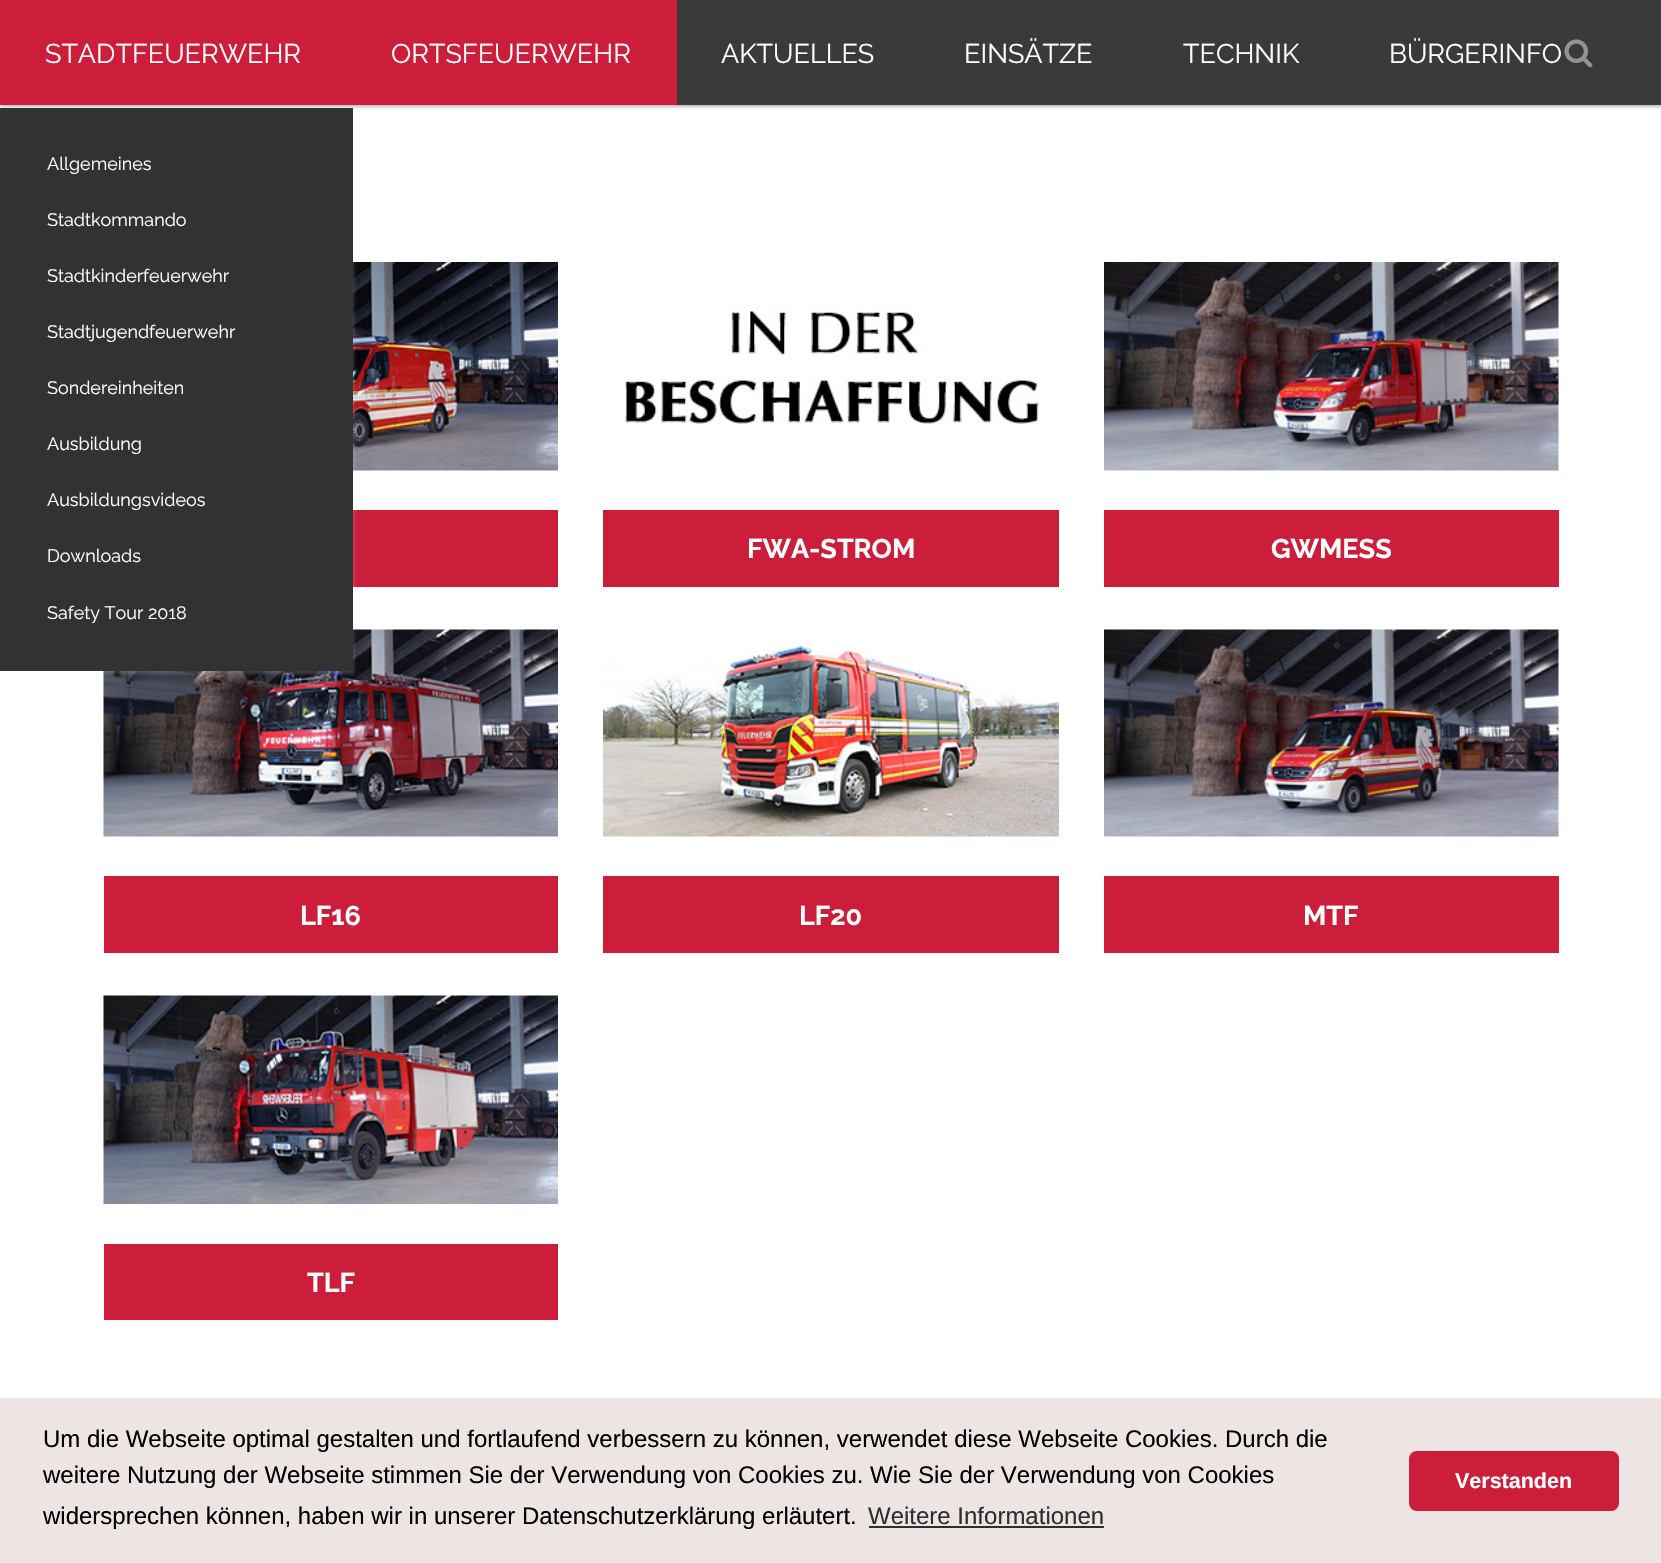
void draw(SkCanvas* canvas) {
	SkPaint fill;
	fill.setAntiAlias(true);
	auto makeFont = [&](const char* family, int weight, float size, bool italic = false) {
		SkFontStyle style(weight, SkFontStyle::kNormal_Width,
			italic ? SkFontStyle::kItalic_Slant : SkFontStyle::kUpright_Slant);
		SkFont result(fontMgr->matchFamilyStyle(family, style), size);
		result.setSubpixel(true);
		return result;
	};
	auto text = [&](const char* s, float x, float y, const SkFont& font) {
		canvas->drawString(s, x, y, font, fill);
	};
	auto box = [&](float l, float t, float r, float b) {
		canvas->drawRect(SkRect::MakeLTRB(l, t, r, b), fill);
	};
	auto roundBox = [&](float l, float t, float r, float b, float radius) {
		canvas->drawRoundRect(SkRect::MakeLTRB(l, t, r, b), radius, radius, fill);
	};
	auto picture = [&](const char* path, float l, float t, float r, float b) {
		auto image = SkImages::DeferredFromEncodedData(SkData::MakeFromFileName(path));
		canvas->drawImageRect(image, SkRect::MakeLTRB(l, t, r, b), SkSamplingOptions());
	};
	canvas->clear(0xFFFFFFFF);
	fill.setColor(0xFFBBBBBB);
	fill.setMaskFilter(SkMaskFilter::MakeBlur(kNormal_SkBlurStyle, 1.5f));
	canvas->drawRect(SkRect::MakeLTRB(0, 2, 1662, 107), fill);
	fill.setMaskFilter(nullptr);
	fill.setColor(0xFF3A3A3A);
	box(677, 0, 1661, 105);
	fill.setColor(0xFFCC1E3A);
	box(0, 0, 677, 105);
	picture("image1.png", 353, 262, 558, 471);
	box(353, 510, 558, 587);
	picture("image4.png", 103, 629, 558, 837);
	fill.setColor(0x2EFFFFFF);
	fill.setMaskFilter(SkMaskFilter::MakeBlur(kNormal_SkBlurStyle, 1.5f));
	canvas->drawRect(SkRect::MakeLTRB(-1, 108, 354, 674), fill);
	fill.setMaskFilter(nullptr);
	fill.setColor(0xFF323232);
	box(0, 108, 353, 671);
	picture("image0.png", 1564, 39, 1593, 68);
	picture("image2.png", 625, 304, 1039, 426);
	fill.setColor(0xFFCC1E3A);
	box(603, 510, 1059, 587);
	picture("image3.png", 1104, 262, 1559, 471);
	box(1104, 510, 1559, 587);
	box(104, 876, 558, 953);
	picture("image5.png", 603, 640, 1059, 837);
	box(603, 876, 1059, 953);
	picture("image6.png", 1104, 629, 1559, 837);
	box(1104, 876, 1559, 953);
	picture("image7.png", 103, 995, 558, 1204);
	box(104, 1244, 558, 1320);
	fill.setColor(0xFFEDE4E4);
	box(0, 1398, 1661, 1563);
	fill.setColor(0xFF2F2E2E);
	box(869, 1526, 1104, 1528);
	fill.setColor(0xFFCC1E3A);
	roundBox(1409, 1451, 1619, 1511, 8);
	auto font1 = makeFont("Raleway", 400, 27);
	fill.setColor(0xFFFFFFFF);
	text("STADTFEUERWEHR", 45, 63, font1);
	auto font2 = makeFont("Raleway", 400, 18);
	text("Allgemeines", 47, 170, font2);
	text("Stadtkommando", 47, 226, font2);
	text("Stadtkinderfeuerwehr", 47, 282, font2);
	text("Stadtjugendfeuerwehr", 47, 338, font2);
	text("Sondereinheiten", 47, 394, font2);
	text("Ausbildung", 47, 450, font2);
	text("Ausbildungsvideos", 47, 506, font2);
	text("Downloads", 47, 562, font2);
	text("Safety Tour 2018", 47, 619, font2);
	text("ORTSFEUERWEHR", 391, 63, font1);
	text("AKTUELLES", 721, 63, font1);
	text("EINSÄTZE", 964, 63, font1);
	text("TECHNIK", 1183, 63, font1);
	text("BÜRGERINFO", 1389, 63, font1);
	auto font3 = makeFont("Raleway", 700, 27);
	text("FWA-STROM", 747, 558, font3);
	text("GWMESS", 1271, 558, font3);
	text("LF16", 300, 925, font3);
	text("LF20", 799, 925, font3);
	text("MTF", 1303, 925, font3);
	text("TLF", 307, 1292, font3);
	auto font4 = makeFont("Liberation Sans", 400, 24);
	fill.setColor(0xFF000000);
	text("Um die Webseite optimal gestalten und fortlaufend verbessern zu können, verwendet diese Webseite Cookies. Durch die", 43, 1447, font4);
	text("weitere Nutzung der Webseite stimmen Sie der Verwendung von Cookies zu. Wie Sie der Verwendung von Cookies", 43, 1483, font4);
	text("widersprechen können, haben wir in unserer Datenschutzerklärung erläutert.", 43, 1524, font4);
	fill.setColor(0xFF2F2E2E);
	text("Weitere Informationen", 868, 1524, font4);
	auto font5 = makeFont("Liberation Sans", 700, 21.5f);
	fill.setColor(0xFFFFFFFF);
	text("Verstanden", 1455, 1488, font5);
}
